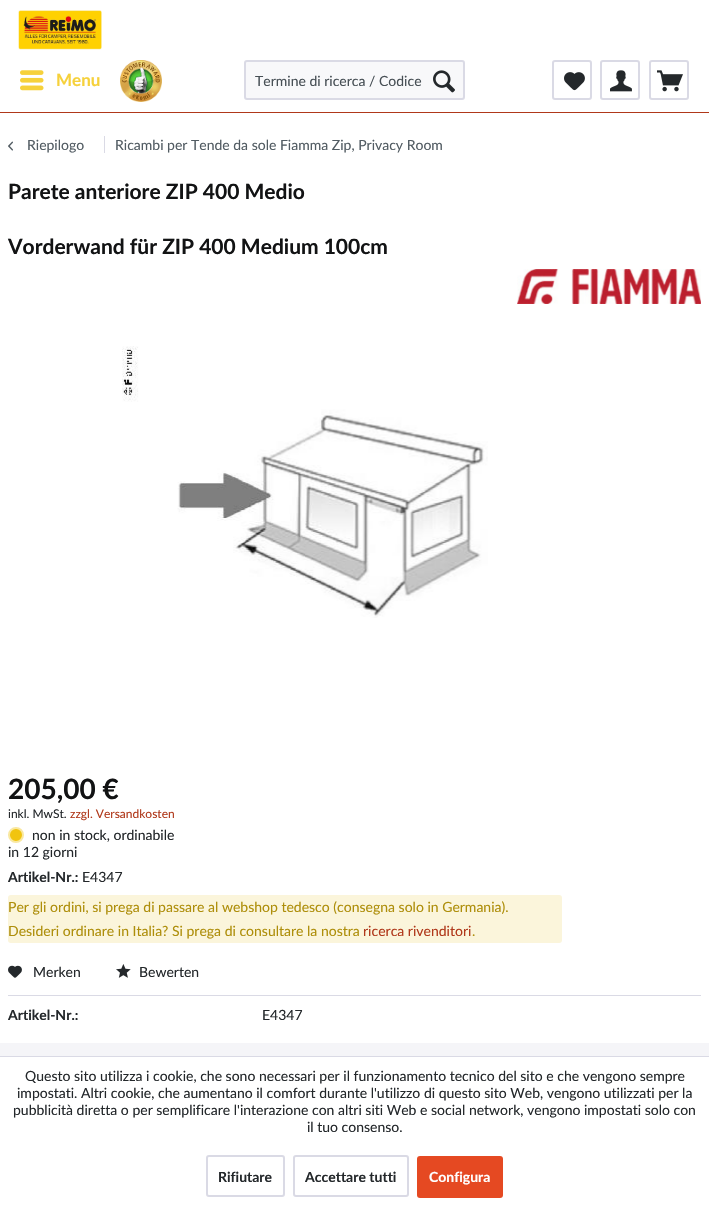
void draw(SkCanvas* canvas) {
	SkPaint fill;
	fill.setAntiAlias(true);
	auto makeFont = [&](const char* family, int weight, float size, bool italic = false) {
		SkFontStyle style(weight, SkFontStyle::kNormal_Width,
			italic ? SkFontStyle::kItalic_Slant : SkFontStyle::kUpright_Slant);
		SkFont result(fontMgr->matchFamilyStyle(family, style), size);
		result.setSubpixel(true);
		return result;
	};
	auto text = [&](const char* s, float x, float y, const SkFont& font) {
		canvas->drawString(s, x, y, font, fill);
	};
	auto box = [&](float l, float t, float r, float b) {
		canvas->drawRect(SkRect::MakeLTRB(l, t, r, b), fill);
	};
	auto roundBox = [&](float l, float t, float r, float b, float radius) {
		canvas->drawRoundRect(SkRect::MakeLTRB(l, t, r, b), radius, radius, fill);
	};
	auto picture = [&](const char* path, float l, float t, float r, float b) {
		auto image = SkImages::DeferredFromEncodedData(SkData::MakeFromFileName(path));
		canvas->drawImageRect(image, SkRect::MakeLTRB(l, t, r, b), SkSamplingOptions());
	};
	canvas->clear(0xFFFFFFFF);
	fill.setColor(0xFFB0381A);
	box(0, 112, 709, 113);
	picture("image0.png", 18, 10, 102, 50);
	picture("image1.png", 20, 70, 44, 91);
	picture("image2.png", 120, 60, 162, 102);
	fill.setColor(0xFFF8F8FA);
	canvas->drawRoundRect(SkRect::MakeLTRB(245, 61, 464, 99), 2, 2, fill);
	fill.setStyle(SkPaint::kStroke_Style);
	fill.setStrokeWidth(2);
	fill.setColor(0xFFDADAE5);
	canvas->drawRoundRect(SkRect::MakeLTRB(245, 61, 464, 99), 2, 2, fill);
	picture("image3.png", 433, 70, 455, 93);
	canvas->drawRoundRect(SkRect::MakeLTRB(553, 61, 591, 99), 2, 2, fill);
	picture("image4.png", 564, 72, 585, 91);
	canvas->drawRoundRect(SkRect::MakeLTRB(601, 61, 639, 99), 2, 2, fill);
	picture("image5.png", 610, 70, 632, 92);
	canvas->drawRoundRect(SkRect::MakeLTRB(650, 61, 688, 99), 2, 2, fill);
	picture("image6.png", 657, 70, 683, 92);
	picture("image7.png", 8, 141, 13, 151);
	fill.setStyle(SkPaint::kFill_Style);
	box(104, 136, 105, 153);
	picture("image8.png", 517, 269, 701, 304);
	picture("image9.png", 122, 346, 488, 618);
	fill.setColor(0xFFF1C40F);
	canvas->drawCircle(16, 835, 7, fill);
	fill.setStyle(SkPaint::kStroke_Style);
	fill.setColor(0xFFF9E8A0);
	canvas->drawCircle(16, 835, 7, fill);
	fill.setStyle(SkPaint::kFill_Style);
	fill.setColor(0xFFFBF5DB);
	roundBox(8, 895, 562, 943, 3);
	fill.setColor(0xFFDADAE5);
	box(8, 995, 701, 996);
	picture("image10.png", 8, 965, 22, 978);
	picture("image11.png", 116, 964, 131, 978);
	fill.setColor(0xFFF5F5F8);
	box(0, 1043, 709, 1056);
	fill.setColor(0xFFDADAE5);
	box(0, 1056, 709, 1057);
	fill.setStyle(SkPaint::kStroke_Style);
	canvas->drawRoundRect(SkRect::MakeLTRB(207, 1156, 284, 1196), 2, 2, fill);
	canvas->drawRoundRect(SkRect::MakeLTRB(294, 1156, 408, 1196), 2, 2, fill);
	fill.setStyle(SkPaint::kFill_Style);
	fill.setColor(0xFFE54922);
	roundBox(417, 1156, 503, 1198, 3);
	auto font1 = makeFont("Lato", 700, 17);
	fill.setColor(0xFFF6D13B);
	text("Menu", 56, 86, font1);
	auto font2 = makeFont("Lato", 400, 14);
	fill.setColor(0xFF474F55);
	text("Termine di ricerca / Codice", 255, 86, font2);
	fill.setColor(0xFF525C63);
	text("Riepilogo", 27, 150, font2);
	text("Ricambi per Tende da sole Fiamma Zip, Privacy Room", 115, 150, font2);
	auto font3 = makeFont("Lato", 700, 21);
	fill.setColor(0xFF121314);
	text("Parete anteriore ZIP 400 Medio", 8, 199, font3);
	text("Vorderwand für ZIP 400 Medium 100cm", 8, 254, font3);
	auto font4 = makeFont("Lato", 700, 28);
	text("205,00 €", 8, 799, font4);
	auto font5 = makeFont("Lato", 400, 12);
	fill.setColor(0xFF24282B);
	text("inkl. MwSt.", 8, 818, font5);
	fill.setColor(0xFFB0381A);
	text("zzgl. Versandkosten", 70, 818, font5);
	fill.setColor(0xFF24282B);
	text("non in stock, ordinabile", 32, 840, font2);
	text("in 12 giorni", 8, 857, font2);
	auto font6 = makeFont("Lato", 700, 14);
	text("Artikel-Nr.:", 8, 882, font6);
	text("E4347", 82, 882, font2);
	fill.setColor(0xFFAE8E0A);
	text("Per gli ordini, si prega di passare al webshop tedesco (consegna solo in Germania).", 8, 912, font2);
	text("Desideri ordinare in Italia? Si prega di consultare la nostra", 8, 936, font2);
	fill.setColor(0xFFB0381A);
	text("ricerca rivenditori", 363, 936, font2);
	fill.setColor(0xFFAE8E0A);
	text(".", 472, 936, font2);
	fill.setColor(0xFF24282B);
	text("Merken", 33, 977, font2);
	text("Bewerten", 139, 977, font2);
	text("Artikel-Nr.:", 8, 1020, font6);
	text("E4347", 262, 1020, font2);
	text("Questo sito utilizza i cookie, che sono necessari per il funzionamento tecnico del sito e che vengono sempre", 25, 1081, font2);
	text("impostati. Altri cookie, che aumentano il comfort durante l'utilizzo di questo sito Web, vengono utilizzati per la", 17, 1098, font2);
	text("pubblicità diretta o per semplificare l'interazione con altri siti Web e social network, vengono impostati solo con", 13, 1115, font2);
	text("il tuo consenso.", 307, 1132, font2);
	text("Rifiutare", 218, 1182, font6);
	text("Accettare tutti", 305, 1182, font6);
	fill.setColor(0xFFFFFFFF);
	text("Configura", 429, 1182, font6);
}
